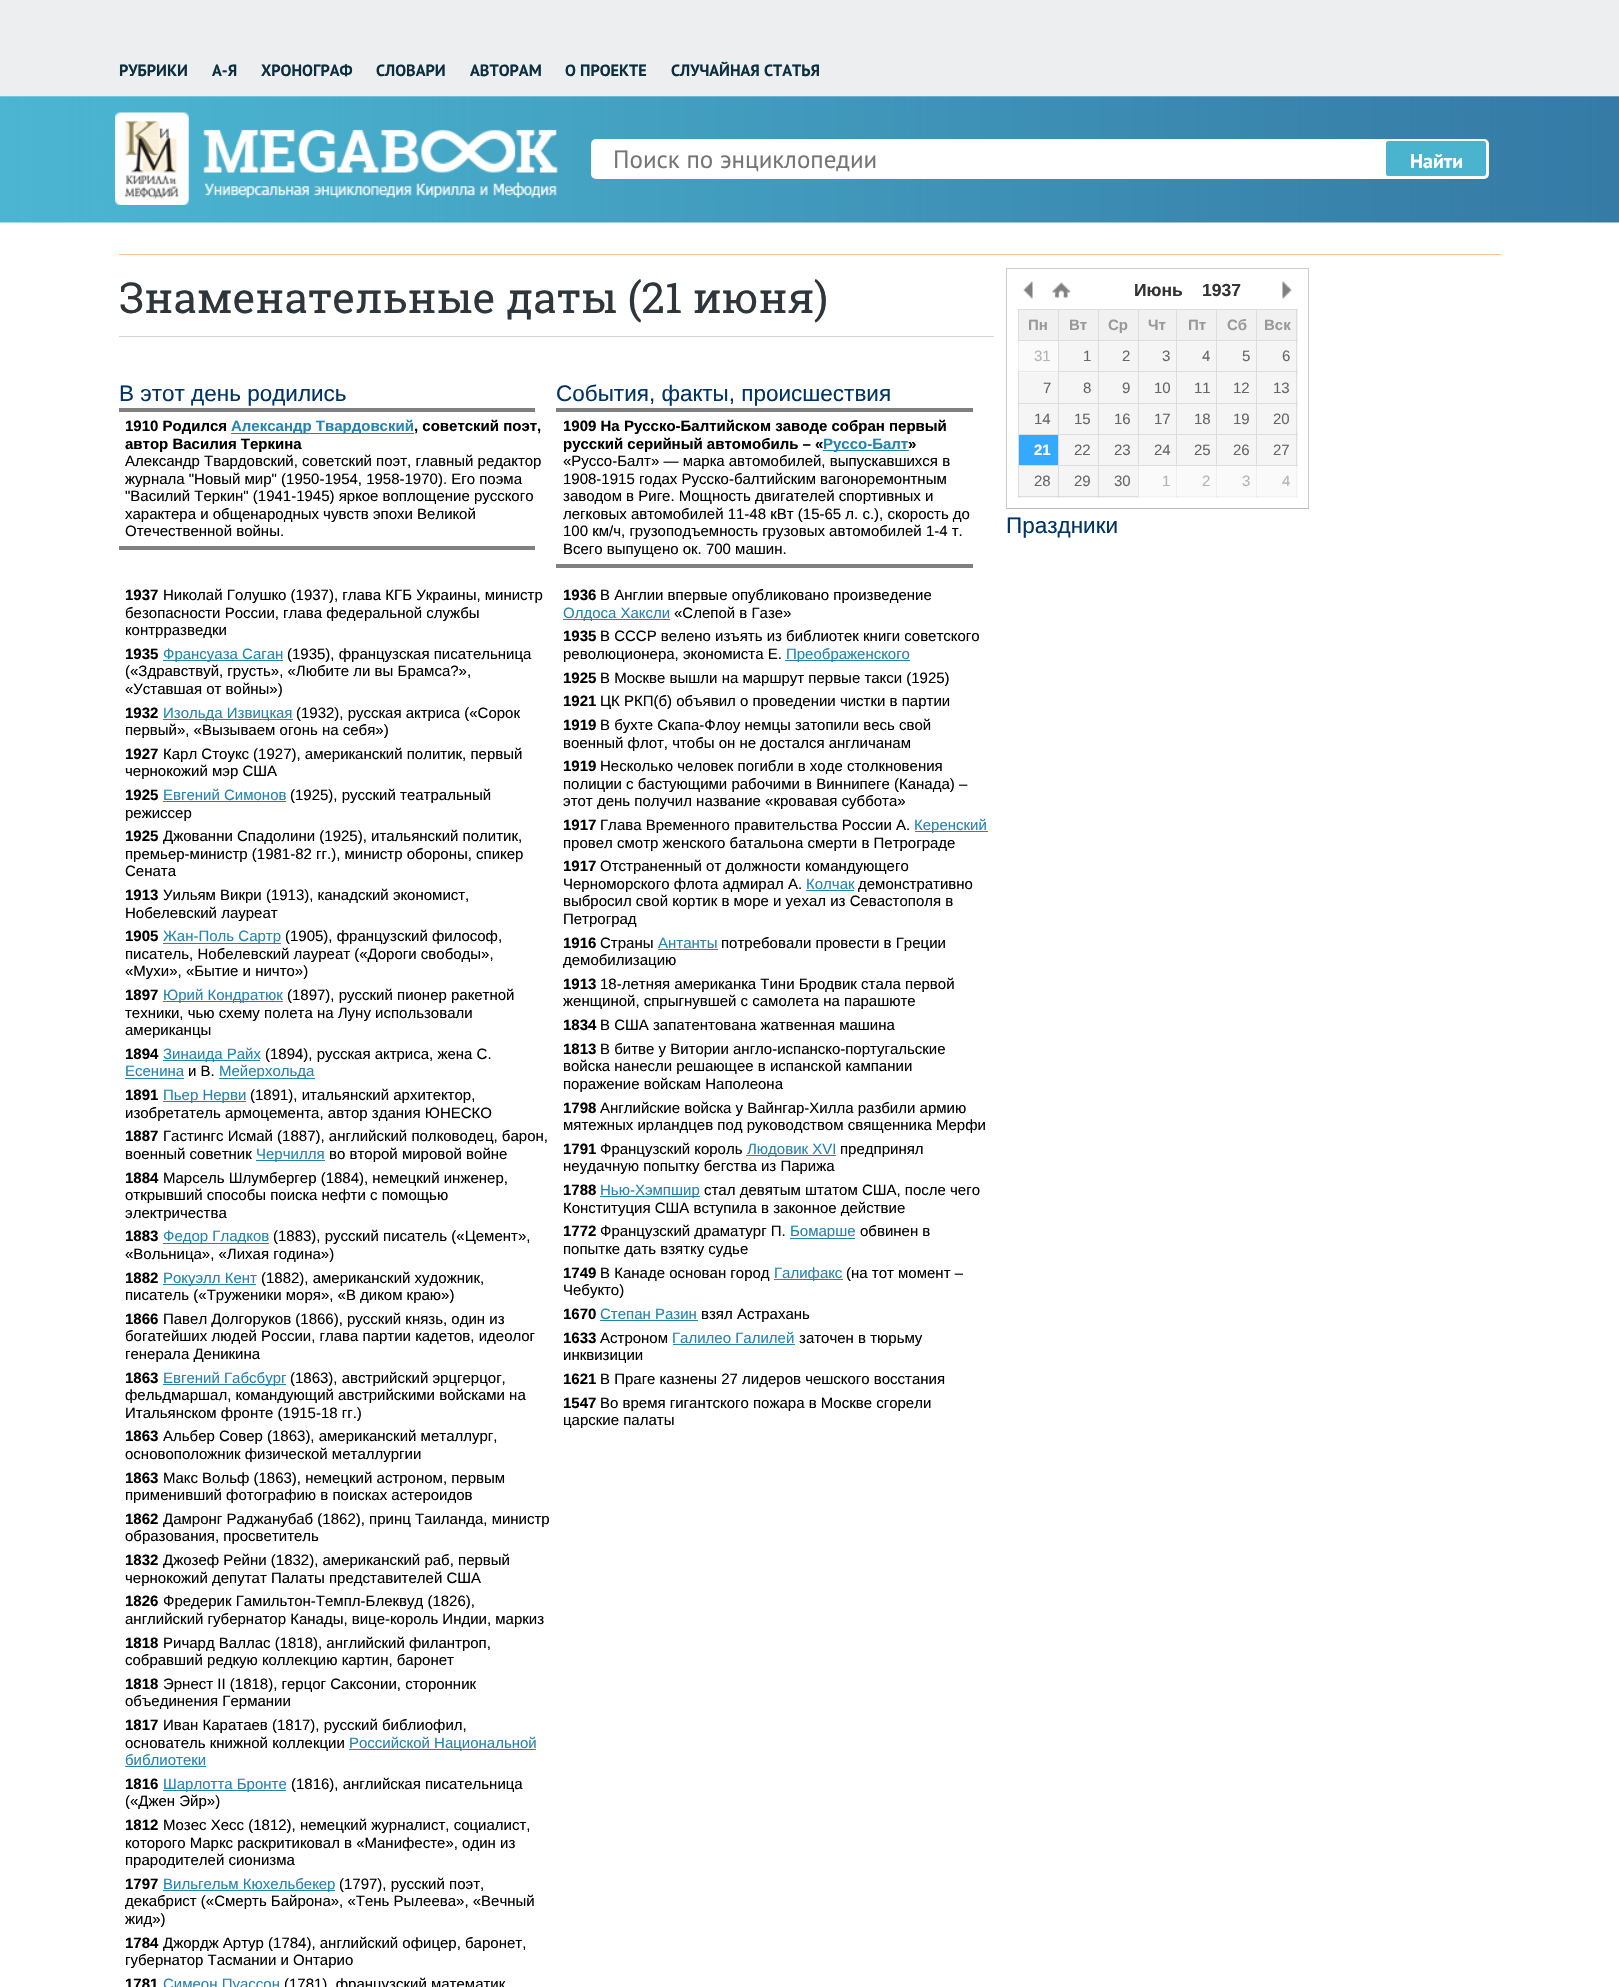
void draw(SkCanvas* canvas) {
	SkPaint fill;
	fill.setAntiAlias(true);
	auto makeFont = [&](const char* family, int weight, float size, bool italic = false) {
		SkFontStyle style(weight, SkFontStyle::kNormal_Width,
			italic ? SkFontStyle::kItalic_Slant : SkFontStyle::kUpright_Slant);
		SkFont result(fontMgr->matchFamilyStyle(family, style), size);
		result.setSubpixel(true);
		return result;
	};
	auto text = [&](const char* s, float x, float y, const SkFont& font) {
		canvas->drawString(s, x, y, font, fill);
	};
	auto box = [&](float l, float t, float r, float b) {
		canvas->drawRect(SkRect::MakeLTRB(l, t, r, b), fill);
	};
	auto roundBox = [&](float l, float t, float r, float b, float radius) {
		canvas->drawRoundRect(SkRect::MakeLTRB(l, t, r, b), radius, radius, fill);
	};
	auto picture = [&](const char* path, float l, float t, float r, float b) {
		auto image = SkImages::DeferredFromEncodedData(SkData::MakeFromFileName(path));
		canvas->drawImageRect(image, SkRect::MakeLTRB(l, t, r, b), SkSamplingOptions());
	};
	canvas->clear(0xFFFFFFFF);
	fill.setColor(0xFFFAFAFA);
	box(1139, 466, 1298, 498);
	box(1019, 341, 1058, 373);
	fill.setColor(0xFFEEEEEE);
	box(1018, 340, 1019, 373);
	fill.setColor(0xFFF2F2F2);
	box(1138, 496, 1258, 497);
	fill.setColor(0xFFEEEEEE);
	box(1176, 466, 1177, 498);
	box(1176, 496, 1178, 497);
	fill.setColor(0xFFEBEBEB);
	box(1176, 496, 1177, 497);
	fill.setColor(0xFFEEEEEE);
	box(1216, 466, 1217, 498);
	box(1216, 496, 1218, 497);
	fill.setColor(0xFFEBEBEB);
	box(1216, 496, 1217, 497);
	fill.setColor(0xFFEEEEEE);
	box(1256, 466, 1257, 498);
	fill.setColor(0xFFF2F2F2);
	box(1296, 466, 1297, 498);
	fill.setColor(0xFFECEEEF);
	box(0, 0, 1619, 96);
	picture("image0.png", 0, 96, 1619, 223);
	picture("image1.png", 115, 112, 558, 205);
	fill.setColor(0xFFFFFFFF);
	roundBox(591, 139, 1489, 179, 5);
	fill.setColor(0xFF4AB4CF);
	roundBox(1386, 141, 1486, 176, 2.5f);
	fill.setColor(0xFFFFC59A);
	box(119, 254, 1501, 255);
	fill.setColor(0xFFD5D5D5);
	box(119, 336, 994, 337);
	fill.setColor(0xFF808080);
	box(119, 408, 535, 412);
	fill.setColor(0xFF2484B1);
	box(231, 433, 414, 434);
	fill.setColor(0xFF808080);
	box(119, 546, 535, 550);
	box(556, 408, 973, 412);
	fill.setColor(0xFF2484B1);
	box(823, 450, 909, 451);
	fill.setColor(0xFF808080);
	box(556, 564, 973, 568);
	fill.setColor(0xFF2484B1);
	box(163, 660, 283, 661);
	box(163, 719, 293, 720);
	box(163, 801, 286, 802);
	box(163, 943, 281, 944);
	box(163, 1001, 283, 1002);
	box(163, 1060, 260, 1061);
	box(125, 1078, 184, 1079);
	box(219, 1078, 315, 1079);
	box(163, 1101, 246, 1102);
	box(256, 1160, 325, 1161);
	box(163, 1243, 269, 1244);
	box(163, 1284, 256, 1285);
	box(163, 1384, 286, 1385);
	box(349, 1749, 536, 1750);
	box(125, 1766, 206, 1767);
	box(163, 1790, 286, 1791);
	box(163, 1890, 335, 1891);
	box(563, 619, 670, 620);
	box(785, 660, 910, 661);
	box(915, 831, 988, 832);
	box(806, 890, 854, 891);
	box(658, 949, 718, 950);
	box(746, 1155, 836, 1156);
	box(600, 1196, 700, 1197);
	box(790, 1238, 855, 1239);
	box(774, 1279, 843, 1280);
	box(600, 1320, 698, 1321);
	box(673, 1344, 795, 1345);
	fill.setColor(0xFFCCCCCC);
	box(1006, 268, 1309, 269);
	box(1308, 268, 1309, 509);
	fill.setColor(0xFFBBBBBB);
	box(1006, 508, 1309, 509);
	fill.setColor(0xFFCCCCCC);
	box(1006, 268, 1007, 509);
	picture("image2.png", 1023, 281, 1033, 299);
	picture("image3.png", 1052, 282, 1071, 298);
	picture("image4.png", 1282, 281, 1292, 299);
	fill.setColor(0xFFF1F1F1);
	box(1019, 310, 1058, 340);
	fill.setColor(0xFFDDDDDD);
	box(1256, 309, 1298, 310);
	fill.setColor(0xFFF1F1F1);
	box(1139, 310, 1298, 340);
	fill.setColor(0xFFDDDDDD);
	box(1256, 340, 1298, 341);
	fill.setColor(0xFFF5F5F5);
	box(1139, 341, 1298, 373);
	fill.setColor(0xFFDDDDDD);
	box(1256, 371, 1298, 372);
	fill.setColor(0xFFF5F5F5);
	box(1139, 373, 1298, 403);
	fill.setColor(0xFFDDDDDD);
	box(1256, 403, 1298, 404);
	fill.setColor(0xFFF5F5F5);
	box(1139, 404, 1298, 434);
	fill.setColor(0xFFDDDDDD);
	box(1256, 434, 1298, 435);
	fill.setColor(0xFFF5F5F5);
	box(1139, 435, 1298, 465);
	fill.setColor(0xFFDDDDDD);
	box(1296, 434, 1297, 466);
	box(1256, 465, 1298, 466);
	box(1256, 434, 1257, 466);
	box(1216, 434, 1258, 435);
	box(1256, 403, 1257, 435);
	box(1216, 403, 1258, 404);
	box(1256, 371, 1257, 404);
	box(1216, 371, 1258, 372);
	box(1256, 340, 1257, 373);
	box(1216, 340, 1258, 341);
	box(1256, 309, 1257, 341);
	box(1216, 309, 1258, 310);
	box(1216, 465, 1258, 466);
	box(1216, 434, 1217, 466);
	box(1176, 434, 1218, 435);
	box(1216, 403, 1217, 435);
	box(1176, 403, 1218, 404);
	box(1216, 371, 1217, 404);
	box(1176, 371, 1218, 372);
	box(1216, 340, 1217, 373);
	box(1176, 340, 1218, 341);
	box(1216, 309, 1217, 341);
	box(1176, 309, 1218, 310);
	box(1176, 465, 1218, 466);
	box(1176, 434, 1177, 466);
	box(1138, 434, 1178, 435);
	box(1176, 403, 1177, 435);
	box(1138, 403, 1178, 404);
	box(1176, 371, 1177, 404);
	box(1138, 371, 1178, 372);
	box(1176, 340, 1177, 373);
	box(1138, 340, 1178, 341);
	box(1176, 309, 1177, 341);
	box(1138, 309, 1178, 310);
	fill.setColor(0xFFF5F5F5);
	box(1099, 341, 1138, 403);
	fill.setColor(0xFFDDDDDD);
	box(1098, 465, 1139, 466);
	box(1138, 465, 1178, 466);
	box(1138, 434, 1139, 466);
	box(1098, 434, 1139, 435);
	box(1138, 403, 1139, 435);
	box(1098, 403, 1139, 404);
	box(1138, 371, 1139, 404);
	box(1098, 371, 1139, 372);
	box(1138, 340, 1139, 373);
	box(1098, 340, 1139, 341);
	box(1138, 309, 1139, 341);
	box(1098, 309, 1139, 310);
	fill.setColor(0xFFF5F5F5);
	box(1059, 341, 1098, 403);
	box(1099, 466, 1138, 498);
	fill.setColor(0xFFE9E9E9);
	box(1138, 466, 1139, 498);
	fill.setColor(0xFFDDDDDD);
	box(1098, 496, 1139, 497);
	box(1098, 465, 1099, 498);
	box(1058, 465, 1099, 466);
	box(1098, 434, 1099, 466);
	box(1058, 434, 1099, 435);
	box(1098, 403, 1099, 435);
	box(1058, 403, 1099, 404);
	box(1098, 371, 1099, 404);
	box(1058, 371, 1099, 372);
	box(1098, 340, 1099, 373);
	box(1058, 340, 1099, 341);
	box(1098, 309, 1099, 341);
	box(1058, 309, 1099, 310);
	fill.setColor(0xFFF5F5F5);
	box(1059, 466, 1098, 498);
	fill.setColor(0xFFDDDDDD);
	box(1058, 496, 1099, 497);
	box(1058, 465, 1059, 498);
	box(1018, 465, 1059, 466);
	box(1058, 434, 1059, 466);
	box(1018, 434, 1059, 435);
	box(1058, 403, 1059, 435);
	box(1018, 403, 1059, 404);
	box(1058, 371, 1059, 404);
	box(1058, 340, 1059, 373);
	box(1058, 309, 1059, 341);
	box(1018, 309, 1059, 310);
	box(1018, 340, 1059, 341);
	box(1018, 309, 1019, 341);
	fill.setColor(0xFFF1F1F1);
	box(1059, 310, 1098, 340);
	box(1099, 310, 1138, 340);
	fill.setColor(0xFFDDDDDD);
	box(1296, 403, 1297, 435);
	box(1296, 371, 1297, 404);
	box(1296, 340, 1297, 373);
	box(1296, 309, 1297, 341);
	fill.setColor(0xFFF5F5F5);
	box(1019, 373, 1058, 403);
	fill.setColor(0xFFE9E9E9);
	box(1019, 371, 1058, 372);
	fill.setColor(0xFFF5F5F5);
	box(1019, 404, 1058, 434);
	box(1019, 466, 1058, 498);
	fill.setColor(0xFFDDDDDD);
	box(1018, 496, 1059, 497);
	box(1018, 465, 1019, 498);
	box(1018, 434, 1019, 466);
	box(1018, 371, 1019, 435);
	fill.setColor(0xFFF5F5F5);
	box(1059, 404, 1098, 434);
	box(1099, 404, 1138, 434);
	fill.setColor(0xFF33AAFF);
	box(1019, 435, 1058, 465);
	fill.setColor(0xFFF5F5F5);
	box(1059, 435, 1098, 465);
	box(1099, 435, 1138, 465);
	fill.setColor(0xFFE9E9E9);
	box(1138, 496, 1139, 497);
	fill.setColor(0xFFF2F2F2);
	box(1258, 496, 1298, 497);
	fill.setColor(0xFFEEEEEE);
	box(1256, 496, 1258, 497);
	fill.setColor(0xFFEBEBEB);
	box(1256, 496, 1257, 497);
	auto font1 = makeFont("PT Sans", 700, 16.25f);
	fill.setColor(0xFF0C2F40);
	text("РУБРИКИ", 119, 76, font1);
	text("А-Я", 212, 76, font1);
	text("ХРОНОГРАФ", 261, 76, font1);
	text("СЛОВАРИ", 376, 76, font1);
	text("АВТОРАМ", 470, 76, font1);
	text("О ПРОЕКТЕ", 565, 76, font1);
	text("СЛУЧАЙНАЯ СТАТЬЯ", 671, 76, font1);
	auto font2 = makeFont("PT Sans", 400, 25);
	fill.setColor(0xFF757575);
	text("Поиск по энциклопедии", 613, 168, font2);
	auto font3 = makeFont("PT Sans", 700, 20);
	fill.setColor(0xFFFFFFFF);
	text("Найти", 1410, 168, font3);
	auto font4 = makeFont("Roboto Slab", 400, 42.5f);
	fill.setColor(0xFF2E363B);
	text("Знаменательные даты (21 июня)", 119, 313, font4);
	auto font5 = makeFont("Liberation Sans", 400, 22.5f);
	fill.setColor(0xFF003366);
	text("В этот день родились", 119, 401, font5);
	auto font6 = makeFont("Liberation Sans", 700, 15);
	fill.setColor(0xFF000000);
	text("1910 Родился", 125, 431, font6);
	fill.setColor(0xFF2484B1);
	text("Александр Твардовский", 231, 431, font6);
	fill.setColor(0xFF000000);
	text(", советский поэт,", 414, 431, font6);
	text("автор Василия Теркина", 125, 449, font6);
	auto font7 = makeFont("Liberation Sans", 400, 15);
	text("Александр Твардовский, советский поэт, главный редактор", 125, 466, font7);
	text("журнала \"Новый мир\" (1950-1954, 1958-1970). Его поэма", 125, 484, font7);
	text("\"Василий Теркин\" (1941-1945) яркое воплощение русского", 125, 501, font7);
	text("характера и общенародных чувств эпохи Великой", 125, 519, font7);
	text("Отечественной войны.", 125, 536, font7);
	fill.setColor(0xFF003366);
	text("События, факты, происшествия", 556, 401, font5);
	fill.setColor(0xFF000000);
	text("1909 На Русско-Балтийском заводе собран первый", 563, 431, font6);
	text("русский серийный автомобиль – «", 563, 449, font6);
	fill.setColor(0xFF2484B1);
	text("Руссо-Балт", 823, 449, font6);
	fill.setColor(0xFF000000);
	text("»", 908, 449, font6);
	text("«Руссо-Балт» — марка автомобилей, выпускавшихся в", 563, 466, font7);
	text("1908-1915 годах Русско-балтийским вагоноремонтным", 563, 484, font7);
	text("заводом в Риге. Мощность двигателей спортивных и", 563, 501, font7);
	text("легковых автомобилей 11-48 кВт (15-65 л. с.), скорость до", 563, 519, font7);
	text("100 км/ч, грузоподъемность грузовых автомобилей 1-4 т.", 563, 536, font7);
	text("Всего выпущено ок. 700 машин.", 563, 554, font7);
	text("1937", 125, 600, font6);
	text("Николай Голушко (1937), глава КГБ Украины, министр", 163, 600, font7);
	text("безопасности России, глава федеральной службы", 125, 618, font7);
	text("контрразведки", 125, 635, font7);
	text("1935", 125, 659, font6);
	fill.setColor(0xFF2484B1);
	text("Франсуаза Саган", 163, 659, font7);
	fill.setColor(0xFF000000);
	text("(1935), французская писательница", 287, 659, font7);
	text("(«Здравствуй, грусть», «Любите ли вы Брамса?»,", 125, 676, font7);
	text("«Уставшая от войны»)", 125, 694, font7);
	text("1932", 125, 718, font6);
	fill.setColor(0xFF2484B1);
	text("Изольда Извицкая", 163, 718, font7);
	fill.setColor(0xFF000000);
	text("(1932), русская актриса («Сорок", 296, 718, font7);
	text("первый», «Вызываем огонь на себя»)", 125, 735, font7);
	text("1927", 125, 759, font6);
	text("Карл Стоукс (1927), американский политик, первый", 163, 759, font7);
	text("чернокожий мэр США", 125, 776, font7);
	text("1925", 125, 800, font6);
	fill.setColor(0xFF2484B1);
	text("Евгений Симонов", 163, 800, font7);
	fill.setColor(0xFF000000);
	text("(1925), русский театральный", 290, 800, font7);
	text("режиссер", 125, 818, font7);
	text("1925", 125, 841, font6);
	text("Джованни Спадолини (1925), итальянский политик,", 163, 841, font7);
	text("премьер-министр (1981-82 гг.), министр обороны, спикер", 125, 859, font7);
	text("Сената", 125, 876, font7);
	text("1913", 125, 900, font6);
	text("Уильям Викри (1913), канадский экономист,", 163, 900, font7);
	text("Нобелевский лауреат", 125, 918, font7);
	text("1905", 125, 941, font6);
	fill.setColor(0xFF2484B1);
	text("Жан-Поль Сартр", 163, 941, font7);
	fill.setColor(0xFF000000);
	text("(1905), французский философ,", 285, 941, font7);
	text("писатель, Нобелевский лауреат («Дороги свободы»,", 125, 959, font7);
	text("«Мухи», «Бытие и ничто»)", 125, 976, font7);
	text("1897", 125, 1000, font6);
	fill.setColor(0xFF2484B1);
	text("Юрий Кондратюк", 163, 1000, font7);
	fill.setColor(0xFF000000);
	text("(1897), русский пионер ракетной", 287, 1000, font7);
	text("техники, чью схему полета на Луну использовали", 125, 1018, font7);
	text("американцы", 125, 1035, font7);
	text("1894", 125, 1059, font6);
	fill.setColor(0xFF2484B1);
	text("Зинаида Райх", 163, 1059, font7);
	fill.setColor(0xFF000000);
	text("(1894), русская актриса, жена С.", 265, 1059, font7);
	fill.setColor(0xFF2484B1);
	text("Есенина", 125, 1076, font7);
	fill.setColor(0xFF000000);
	text("и В.", 188, 1076, font7);
	fill.setColor(0xFF2484B1);
	text("Мейерхольда", 219, 1076, font7);
	fill.setColor(0xFF000000);
	text("1891", 125, 1100, font6);
	fill.setColor(0xFF2484B1);
	text("Пьер Нерви", 163, 1100, font7);
	fill.setColor(0xFF000000);
	text("(1891), итальянский архитектор,", 250, 1100, font7);
	text("изобретатель армоцемента, автор здания ЮНЕСКО", 125, 1118, font7);
	text("1887", 125, 1141, font6);
	text("Гастингс Исмай (1887), английский полководец, барон,", 163, 1141, font7);
	text("военный советник", 125, 1159, font7);
	fill.setColor(0xFF2484B1);
	text("Черчилля", 256, 1159, font7);
	fill.setColor(0xFF000000);
	text("во второй мировой войне", 329, 1159, font7);
	text("1884", 125, 1183, font6);
	text("Марсель Шлумбергер (1884), немецкий инженер,", 163, 1183, font7);
	text("открывший способы поиска нефти с помощью", 125, 1200, font7);
	text("электричества", 125, 1218, font7);
	text("1883", 125, 1241, font6);
	fill.setColor(0xFF2484B1);
	text("Федор Гладков", 163, 1241, font7);
	fill.setColor(0xFF000000);
	text("(1883), русский писатель («Цемент»,", 273, 1241, font7);
	text("«Вольница», «Лихая година»)", 125, 1259, font7);
	text("1882", 125, 1283, font6);
	fill.setColor(0xFF2484B1);
	text("Рокуэлл Кент", 163, 1283, font7);
	fill.setColor(0xFF000000);
	text("(1882), американский художник,", 261, 1283, font7);
	text("писатель («Труженики моря», «В диком краю»)", 125, 1300, font7);
	text("1866", 125, 1324, font6);
	text("Павел Долгоруков (1866), русский князь, один из", 163, 1324, font7);
	text("богатейших людей России, глава партии кадетов, идеолог", 125, 1341, font7);
	text("генерала Деникина", 125, 1359, font7);
	text("1863", 125, 1383, font6);
	fill.setColor(0xFF2484B1);
	text("Евгений Габсбург", 163, 1383, font7);
	fill.setColor(0xFF000000);
	text("(1863), австрийский эрцгерцог,", 290, 1383, font7);
	text("фельдмаршал, командующий австрийскими войсками на", 125, 1400, font7);
	text("Итальянском фронте (1915-18 гг.)", 125, 1418, font7);
	text("1863", 125, 1441, font6);
	text("Альбер Совер (1863), американский металлург,", 163, 1441, font7);
	text("основоположник физической металлургии", 125, 1459, font7);
	text("1863", 125, 1483, font6);
	text("Макс Вольф (1863), немецкий астроном, первым", 163, 1483, font7);
	text("применивший фотографию в поисках астероидов", 125, 1500, font7);
	text("1862", 125, 1524, font6);
	text("Дамронг Раджанубаб (1862), принц Таиланда, министр", 163, 1524, font7);
	text("образования, просветитель", 125, 1541, font7);
	text("1832", 125, 1565, font6);
	text("Джозеф Рейни (1832), американский раб, первый", 163, 1565, font7);
	text("чернокожий депутат Палаты представителей США", 125, 1583, font7);
	text("1826", 125, 1606, font6);
	text("Фредерик Гамильтон-Темпл-Блеквуд (1826),", 163, 1606, font7);
	text("английский губернатор Канады, вице-король Индии, маркиз", 125, 1624, font7);
	text("1818", 125, 1648, font6);
	text("Ричард Валлас (1818), английский филантроп,", 163, 1648, font7);
	text("собравший редкую коллекцию картин, баронет", 125, 1665, font7);
	text("1818", 125, 1689, font6);
	text("Эрнест II (1818), герцог Саксонии, сторонник", 163, 1689, font7);
	text("объединения Германии", 125, 1706, font7);
	text("1817", 125, 1730, font6);
	text("Иван Каратаев (1817), русский библиофил,", 163, 1730, font7);
	text("основатель книжной коллекции", 125, 1748, font7);
	fill.setColor(0xFF2484B1);
	text("Российской Национальной", 349, 1748, font7);
	text("библиотеки", 125, 1765, font7);
	fill.setColor(0xFF000000);
	text("1816", 125, 1789, font6);
	fill.setColor(0xFF2484B1);
	text("Шарлотта Бронте", 163, 1789, font7);
	fill.setColor(0xFF000000);
	text("(1816), английская писательница", 291, 1789, font7);
	text("(«Джен Эйр»)", 125, 1806, font7);
	text("1812", 125, 1830, font6);
	text("Мозес Хесс (1812), немецкий журналист, социалист,", 163, 1830, font7);
	text("которого Маркс раскритиковал в «Манифесте», один из", 125, 1848, font7);
	text("прародителей сионизма", 125, 1865, font7);
	text("1797", 125, 1889, font6);
	fill.setColor(0xFF2484B1);
	text("Вильгельм Кюхельбекер", 163, 1889, font7);
	fill.setColor(0xFF000000);
	text("(1797), русский поэт,", 339, 1889, font7);
	text("декабрист («Смерть Байрона», «Тень Рылеева», «Вечный", 125, 1906, font7);
	text("жид»)", 125, 1924, font7);
	text("1784", 125, 1948, font6);
	text("Джордж Артур (1784), английский офицер, баронет,", 163, 1948, font7);
	text("губернатор Тасмании и Онтарио", 125, 1965, font7);
	text("1781", 125, 1989, font6);
	fill.setColor(0xFF2484B1);
	text("Симеон Пуассон", 163, 1989, font7);
	fill.setColor(0xFF000000);
	text("(1781), французский математик", 284, 1989, font7);
	text("1936", 563, 600, font6);
	text("В Англии впервые опубликовано произведение", 600, 600, font7);
	fill.setColor(0xFF2484B1);
	text("Олдоса Хаксли", 563, 618, font7);
	fill.setColor(0xFF000000);
	text("«Слепой в Газе»", 674, 618, font7);
	text("1935", 563, 641, font6);
	text("В СССР велено изъять из библиотек книги советского", 600, 641, font7);
	text("революционера, экономиста Е.", 563, 659, font7);
	fill.setColor(0xFF2484B1);
	text("Преображенского", 786, 659, font7);
	fill.setColor(0xFF000000);
	text("1925", 563, 683, font6);
	text("В Москве вышли на маршрут первые такси (1925)", 600, 683, font7);
	text("1921", 563, 706, font6);
	text("ЦК РКП(б) объявил о проведении чистки в партии", 600, 706, font7);
	text("1919", 563, 730, font6);
	text("В бухте Скапа-Флоу немцы затопили весь свой", 600, 730, font7);
	text("военный флот, чтобы он не достался англичанам", 563, 748, font7);
	text("1919", 563, 771, font6);
	text("Несколько человек погибли в ходе столкновения", 600, 771, font7);
	text("полиции с бастующими рабочими в Виннипеге (Канада) –", 563, 789, font7);
	text("этот день получил название «кровавая суббота»", 563, 806, font7);
	text("1917", 563, 830, font6);
	text("Глава Временного правительства России А.", 600, 830, font7);
	fill.setColor(0xFF2484B1);
	text("Керенский", 914, 830, font7);
	fill.setColor(0xFF000000);
	text("провел смотр женского батальона смерти в Петрограде", 563, 848, font7);
	text("1917", 563, 871, font6);
	text("Отстраненный от должности командующего", 600, 871, font7);
	text("Черноморского флота адмирал А.", 563, 889, font7);
	fill.setColor(0xFF2484B1);
	text("Колчак", 806, 889, font7);
	fill.setColor(0xFF000000);
	text("демонстративно", 858, 889, font7);
	text("выбросил свой кортик в море и уехал из Севастополя в", 563, 906, font7);
	text("Петроград", 563, 924, font7);
	text("1916", 563, 948, font6);
	text("Страны", 600, 948, font7);
	fill.setColor(0xFF2484B1);
	text("Антанты", 658, 948, font7);
	fill.setColor(0xFF000000);
	text("потребовали провести в Греции", 721, 948, font7);
	text("демобилизацию", 563, 965, font7);
	text("1913", 563, 989, font6);
	text("18-летняя американка Тини Бродвик стала первой", 600, 989, font7);
	text("женщиной, спрыгнувшей с самолета на парашюте", 563, 1006, font7);
	text("1834", 563, 1030, font6);
	text("В США запатентована жатвенная машина", 600, 1030, font7);
	text("1813", 563, 1054, font6);
	text("В битве у Витории англо-испанско-португальские", 600, 1054, font7);
	text("войска нанесли решающее в испанской кампании", 563, 1071, font7);
	text("поражение войскам Наполеона", 563, 1089, font7);
	text("1798", 563, 1113, font6);
	text("Английские войска у Вайнгар-Хилла разбили армию", 600, 1113, font7);
	text("мятежных ирландцев под руководством священника Мерфи", 563, 1130, font7);
	text("1791", 563, 1154, font6);
	text("Французский король", 600, 1154, font7);
	fill.setColor(0xFF2484B1);
	text("Людовик XVI", 747, 1154, font7);
	fill.setColor(0xFF000000);
	text("предпринял", 840, 1154, font7);
	text("неудачную попытку бегства из Парижа", 563, 1171, font7);
	text("1788", 563, 1195, font6);
	fill.setColor(0xFF2484B1);
	text("Нью-Хэмпшир", 600, 1195, font7);
	fill.setColor(0xFF000000);
	text("стал девятым штатом США, после чего", 704, 1195, font7);
	text("Конституция США вступила в законное действие", 563, 1213, font7);
	text("1772", 563, 1236, font6);
	text("Французский драматург П.", 600, 1236, font7);
	fill.setColor(0xFF2484B1);
	text("Бомарше", 790, 1236, font7);
	fill.setColor(0xFF000000);
	text("обвинен в", 860, 1236, font7);
	text("попытке дать взятку судье", 563, 1254, font7);
	text("1749", 563, 1278, font6);
	text("В Канаде основан город", 600, 1278, font7);
	fill.setColor(0xFF2484B1);
	text("Галифакс", 774, 1278, font7);
	fill.setColor(0xFF000000);
	text("(на тот момент –", 846, 1278, font7);
	text("Чебукто)", 563, 1295, font7);
	text("1670", 563, 1319, font6);
	fill.setColor(0xFF2484B1);
	text("Степан Разин", 600, 1319, font7);
	fill.setColor(0xFF000000);
	text("взял Астрахань", 701, 1319, font7);
	text("1633", 563, 1343, font6);
	text("Астроном", 600, 1343, font7);
	fill.setColor(0xFF2484B1);
	text("Галилео Галилей", 672, 1343, font7);
	fill.setColor(0xFF000000);
	text("заточен в тюрьму", 799, 1343, font7);
	text("инквизиции", 563, 1360, font7);
	text("1621", 563, 1384, font6);
	text("В Праге казнены 27 лидеров чешского восстания", 600, 1384, font7);
	text("1547", 563, 1408, font6);
	text("Во время гигантского пожара в Москве сгорели", 600, 1408, font7);
	text("царские палаты", 563, 1425, font7);
	auto font8 = makeFont("Liberation Sans", 700, 17.5f);
	fill.setColor(0xFF333333);
	text("Июнь", 1134, 296, font8);
	text("1937", 1202, 296, font8);
	fill.setColor(0xFF999999);
	text("Пн", 1028, 330, font6);
	text("Вт", 1069, 330, font6);
	text("Ср", 1108, 330, font6);
	text("Чт", 1148, 330, font6);
	text("Пт", 1188, 330, font6);
	text("Сб", 1227, 330, font6);
	text("Вск", 1264, 330, font6);
	fill.setColor(0xFFB3B3B3);
	text("31", 1034, 361, font7);
	fill.setColor(0xFF666666);
	text("1", 1083, 361, font7);
	text("2", 1122, 361, font7);
	text("3", 1162, 361, font7);
	text("4", 1202, 361, font7);
	text("5", 1242, 361, font7);
	text("6", 1282, 361, font7);
	text("7", 1043, 393, font7);
	text("8", 1083, 393, font7);
	text("9", 1122, 393, font7);
	text("10", 1154, 393, font7);
	text("11", 1194, 393, font7);
	text("12", 1233, 393, font7);
	text("13", 1273, 393, font7);
	text("14", 1034, 424, font7);
	text("15", 1074, 424, font7);
	text("16", 1114, 424, font7);
	text("17", 1154, 424, font7);
	text("18", 1194, 424, font7);
	text("19", 1233, 424, font7);
	text("20", 1273, 424, font7);
	fill.setColor(0xFFFFFFFF);
	text("21", 1034, 455, font6);
	fill.setColor(0xFF666666);
	text("22", 1074, 455, font7);
	text("23", 1114, 455, font7);
	text("24", 1154, 455, font7);
	text("25", 1194, 455, font7);
	text("26", 1233, 455, font7);
	text("27", 1273, 455, font7);
	text("28", 1034, 486, font7);
	text("29", 1074, 486, font7);
	text("30", 1114, 486, font7);
	fill.setColor(0xFFB3B3B3);
	text("1", 1162, 486, font7);
	text("2", 1202, 486, font7);
	text("3", 1242, 486, font7);
	text("4", 1282, 486, font7);
	fill.setColor(0xFF003366);
	text("Праздники", 1006, 533, font5);
}
